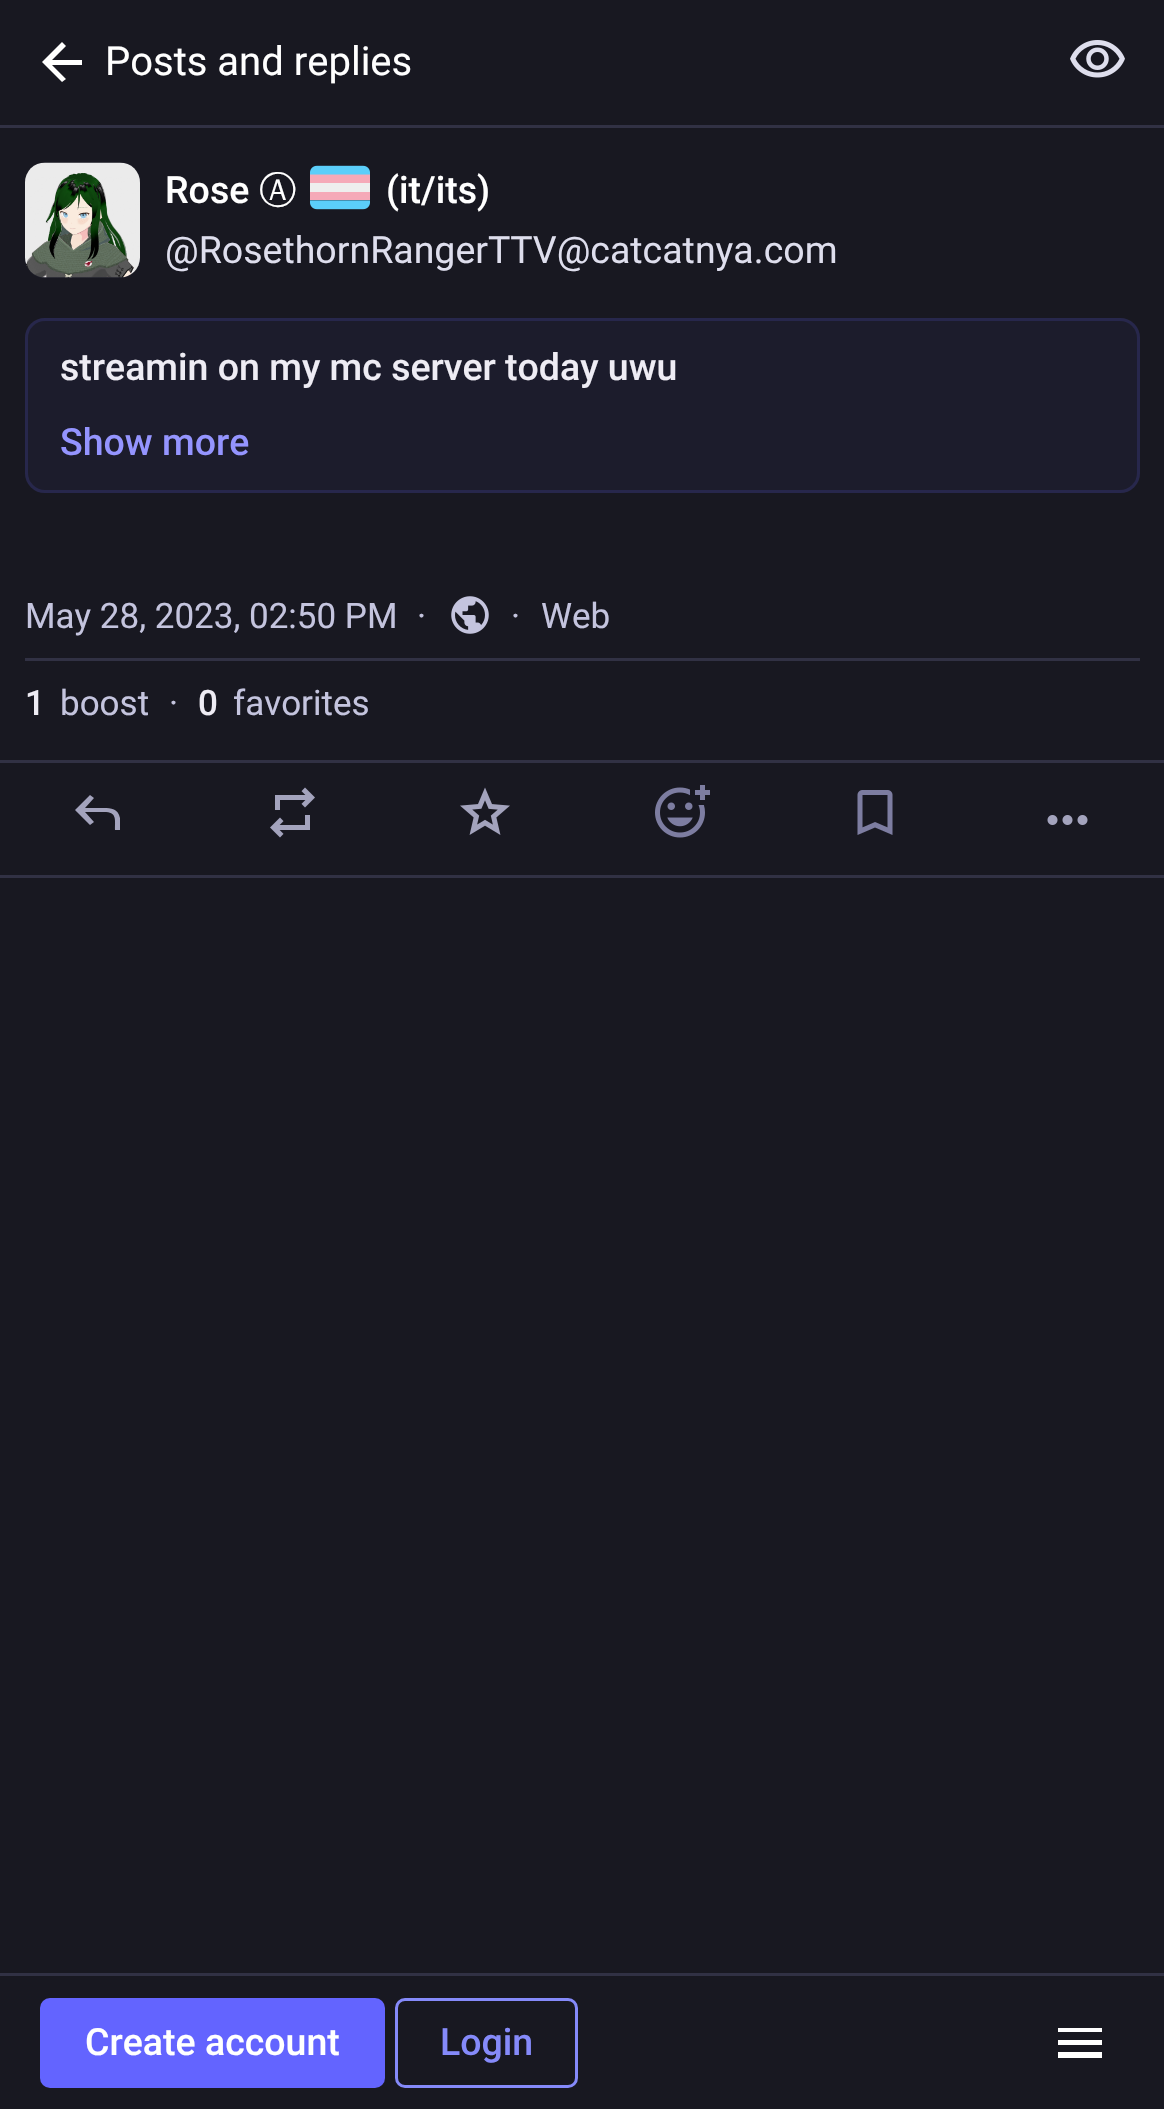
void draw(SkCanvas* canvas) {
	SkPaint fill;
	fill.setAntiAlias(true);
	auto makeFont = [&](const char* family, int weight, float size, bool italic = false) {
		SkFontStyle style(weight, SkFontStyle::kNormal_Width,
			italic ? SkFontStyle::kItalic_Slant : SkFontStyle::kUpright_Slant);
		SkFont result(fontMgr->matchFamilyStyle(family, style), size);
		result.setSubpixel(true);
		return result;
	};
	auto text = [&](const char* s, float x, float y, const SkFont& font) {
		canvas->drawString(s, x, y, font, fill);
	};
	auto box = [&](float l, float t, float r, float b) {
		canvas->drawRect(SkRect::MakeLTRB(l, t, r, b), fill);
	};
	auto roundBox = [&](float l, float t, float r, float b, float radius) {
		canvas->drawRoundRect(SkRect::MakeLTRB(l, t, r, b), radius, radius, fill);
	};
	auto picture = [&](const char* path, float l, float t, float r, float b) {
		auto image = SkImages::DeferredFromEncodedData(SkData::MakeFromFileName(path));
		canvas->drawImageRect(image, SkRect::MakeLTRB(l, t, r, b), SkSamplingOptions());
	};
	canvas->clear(0xFF181821);
	fill.setColor(0xFF313144);
	box(0, 125, 1164, 128);
	fill.setColor(0xFFFFFFFF);
	canvas->drawPath(SkPathBuilder().moveTo(52, 65).lineTo(66, 79).lineTo(62, 82).lineTo(42, 62).lineTo(62, 42).lineTo(66, 46).lineTo(52, 60).lineTo(82, 60).lineTo(82, 65).close().detach(), fill);
	picture("image0.png", 1070, 40, 1125, 78);
	fill.setColor(0xFF20202C);
	roundBox(25, 163, 140, 278, 20);
	picture("image1.png", 25, 162, 140, 278);
	picture("image2.png", 310, 165, 370, 210);
	fill.setColor(0xFF1C1C2C);
	roundBox(25, 318, 1140, 493, 20);
	fill.setStyle(SkPaint::kStroke_Style);
	fill.setStrokeWidth(3);
	fill.setColor(0x266364FF);
	canvas->drawRoundRect(SkRect::MakeLTRB(26.5f, 319.5f, 1138.5f, 491.5f), 18.5f, 18.5f, fill);
	fill.setStyle(SkPaint::kFill_Style);
	fill.setColor(0xFF313144);
	box(25, 658, 1140, 661);
	picture("image3.png", 451, 596, 489, 634);
	box(0, 760, 1164, 763);
	box(0, 875, 1164, 878);
	fill.setColor(0xFFA3A3BD);
	canvas->drawPath(SkPathBuilder().moveTo(115, 830).cubicTo(115, 819, 117, 812, 104, 812).lineTo(85, 812).lineTo(94, 822).lineTo(90, 825).lineTo(75, 810).lineTo(90, 795).lineTo(94, 798).lineTo(85, 808).lineTo(100, 808).cubicTo(108, 808, 118, 807, 120, 818).lineTo(120, 830).close().detach(), fill);
	picture("image4.png", 270, 787, 315, 838);
	picture("image5.png", 460, 787, 510, 835);
	picture("image6.png", 655, 785, 710, 838);
	picture("image7.png", 857, 790, 893, 835);
	picture("image8.png", 1047, 815, 1088, 825);
	fill.setColor(0xFF313144);
	box(0, 1973, 1164, 1976);
	fill.setColor(0xFF6364FF);
	roundBox(40, 1998, 385, 2088, 10);
	fill.setStyle(SkPaint::kStroke_Style);
	fill.setColor(0xFF858AFA);
	canvas->drawRoundRect(SkRect::MakeLTRB(396.5f, 1999.5f, 576.5f, 2086.5f), 8.5f, 8.5f, fill);
	fill.setStyle(SkPaint::kFill_Style);
	fill.setColor(0xFFFFFFFF);
	canvas->drawPath(SkPathBuilder().moveTo(1058, 2058).lineTo(1058, 2052).lineTo(1102, 2052).lineTo(1102, 2058).close().moveTo(1058, 2045).lineTo(1058, 2040).lineTo(1102, 2040).lineTo(1102, 2045).close().moveTo(1058, 2032).lineTo(1058, 2028).lineTo(1102, 2028).lineTo(1102, 2032).close().detach(), fill);
	auto font1 = makeFont("Roboto", 400, 40);
	text("Posts and replies", 105, 75, font1);
	auto font2 = makeFont("Roboto", 500, 37.5f);
	text("Rose", 165, 203, font2);
	auto font3 = makeFont("WenQuanYi Zen Hei", 500, 37.5f);
	text("Ⓐ", 259, 203, font3);
	text("(it/its)", 386, 203, font2);
	auto font4 = makeFont("Roboto", 400, 37.5f);
	fill.setColor(0xFFDEDEED);
	text("@RosethornRangerTTV@catcatnya.com", 165, 263, font4);
	fill.setColor(0xFFEEECF4);
	text("streamin on my mc server today uwu", 60, 380, font2);
	fill.setColor(0xFF9494FF);
	text("Show more", 60, 455, font2);
	auto font5 = makeFont("Roboto", 400, 35);
	fill.setColor(0xFFC4C4DE);
	text("May 28, 2023, 02:50 PM", 25, 628, font5);
	text("·", 417, 628, font5);
	text("·", 511, 628, font5);
	text("Web", 541, 628, font5);
	auto font6 = makeFont("Roboto", 500, 35);
	fill.setColor(0xFFEEECF4);
	text("1", 25, 715, font6);
	fill.setColor(0xFFC4C4DE);
	text("boost", 60, 715, font5);
	text("·", 169, 715, font5);
	fill.setColor(0xFFEEECF4);
	text("0", 198, 715, font6);
	fill.setColor(0xFFC4C4DE);
	text("favorites", 233, 715, font5);
	fill.setColor(0xFFFFFFFF);
	text("Create account", 85, 2055, font2);
	fill.setColor(0xFF858AFA);
	text("Login", 440, 2055, font2);
}
